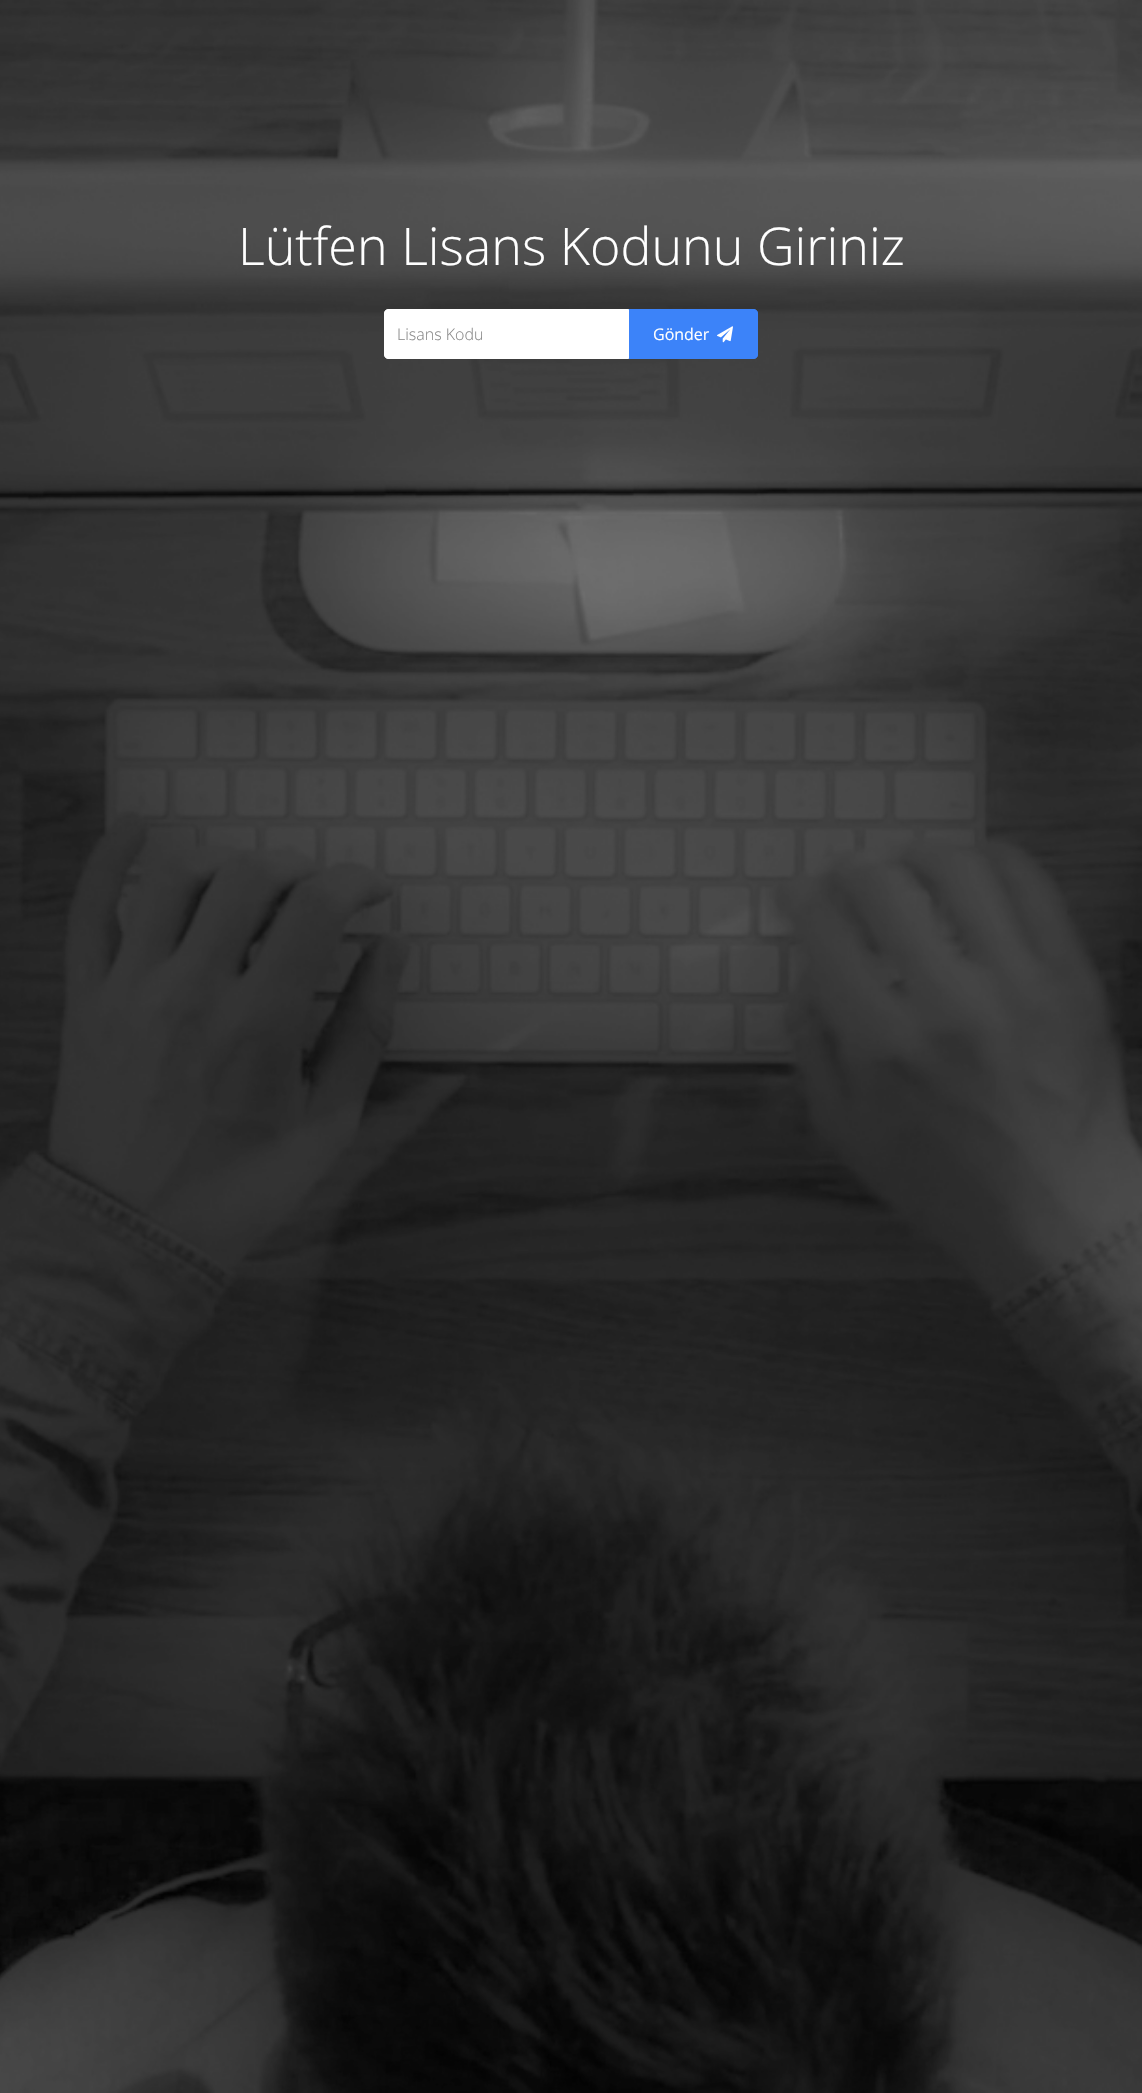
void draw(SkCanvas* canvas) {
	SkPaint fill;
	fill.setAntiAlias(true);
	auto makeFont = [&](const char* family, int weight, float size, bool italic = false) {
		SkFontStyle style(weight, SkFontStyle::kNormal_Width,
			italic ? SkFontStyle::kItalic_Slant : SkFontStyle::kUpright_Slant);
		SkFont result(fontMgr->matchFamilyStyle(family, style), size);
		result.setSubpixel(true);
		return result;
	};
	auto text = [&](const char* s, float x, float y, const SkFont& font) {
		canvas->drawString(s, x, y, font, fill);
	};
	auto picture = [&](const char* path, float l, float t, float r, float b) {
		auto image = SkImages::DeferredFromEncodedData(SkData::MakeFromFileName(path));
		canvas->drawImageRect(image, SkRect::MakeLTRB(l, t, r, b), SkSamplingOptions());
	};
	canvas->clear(0xFFFFFFFF);
	picture("image0.png", 0, 0, 1142, 2093);
	fill.setColor(0xFF3C83F9);
	canvas->drawPath(SkPathBuilder().moveTo(628.5f, 309.5f).lineTo(754, 309.5f).cubicTo(756, 309.5f, 757.5f, 311, 757.5f, 313).lineTo(757.5f, 355).cubicTo(757.5f, 357, 756, 358.5f, 754, 358.5f).lineTo(628.5f, 358.5f).close().detach(), fill);
	fill.setStyle(SkPaint::kStroke_Style);
	fill.setStrokeWidth(1);
	canvas->drawPath(SkPathBuilder().moveTo(628.5f, 309.5f).lineTo(754, 309.5f).cubicTo(756, 309.5f, 757.5f, 311, 757.5f, 313).lineTo(757.5f, 355).cubicTo(757.5f, 357, 756, 358.5f, 754, 358.5f).lineTo(628.5f, 358.5f).close().detach(), fill);
	fill.setStyle(SkPaint::kFill_Style);
	fill.setColor(0xFFFFFFFF);
	canvas->drawPath(SkPathBuilder().moveTo(388, 309.5f).lineTo(628.5f, 309.5f).lineTo(628.5f, 358.5f).lineTo(388, 358.5f).cubicTo(386, 358.5f, 384.5f, 357, 384.5f, 355).lineTo(384.5f, 313).cubicTo(384.5f, 311, 386, 309.5f, 388, 309.5f).close().detach(), fill);
	fill.setStyle(SkPaint::kStroke_Style);
	canvas->drawPath(SkPathBuilder().moveTo(388, 309.5f).lineTo(628.5f, 309.5f).lineTo(628.5f, 358.5f).lineTo(388, 358.5f).cubicTo(386, 358.5f, 384.5f, 357, 384.5f, 355).lineTo(384.5f, 313).cubicTo(384.5f, 311, 386, 309.5f, 388, 309.5f).close().detach(), fill);
	picture("image1.png", 717, 326, 733, 343);
	auto font1 = makeFont("Open Sans", 300, 52);
	fill.setStyle(SkPaint::kFill_Style);
	text("Lütfen Lisans Kodunu Giriniz", 238, 265, font1);
	auto font2 = makeFont("Open Sans", 300, 16);
	fill.setColor(0xFF8A8A8A);
	text("Lisans Kodu", 397, 340, font2);
	auto font3 = makeFont("Open Sans", 400, 16);
	fill.setColor(0xFFFFFFFF);
	text("Gönder", 653, 340, font3);
}
